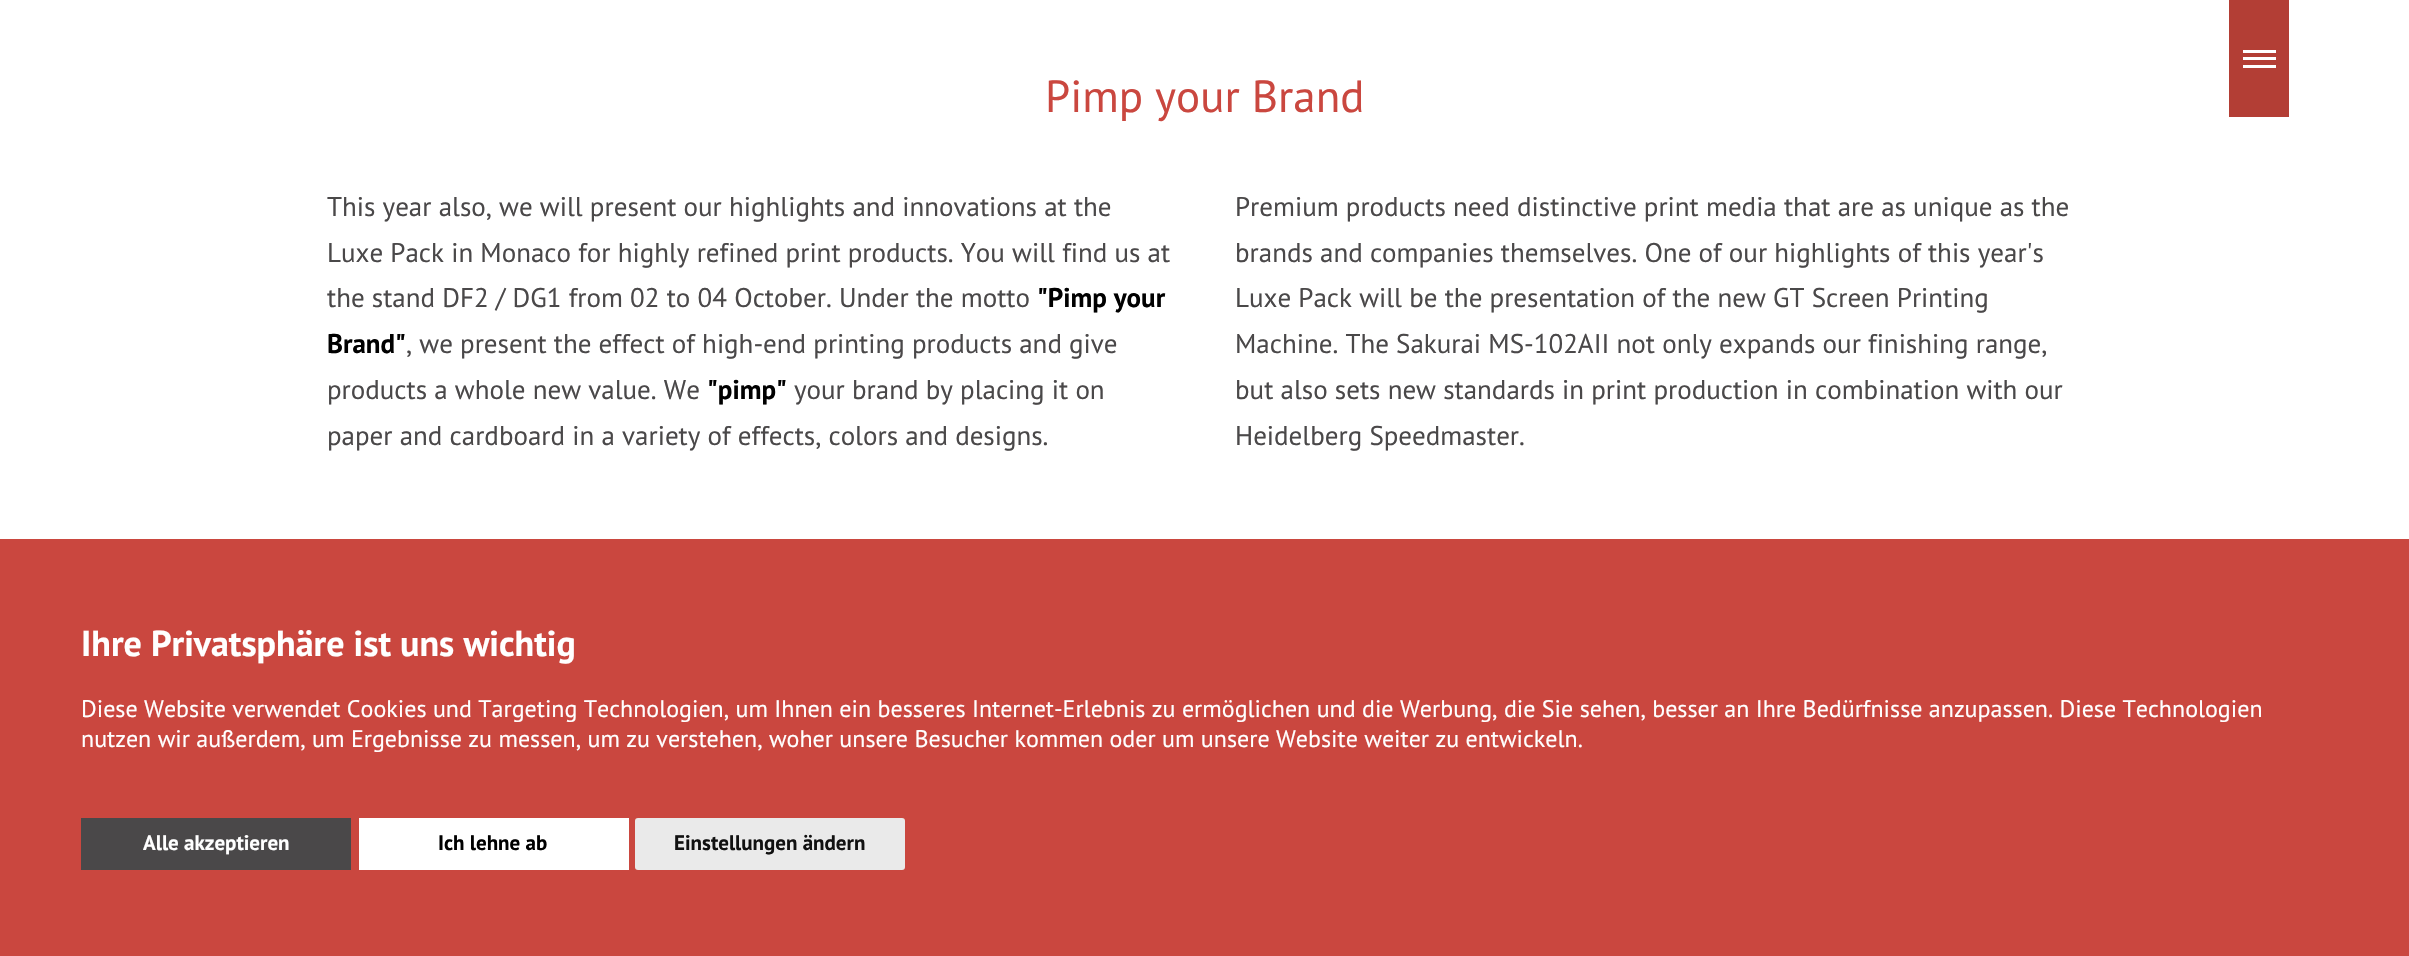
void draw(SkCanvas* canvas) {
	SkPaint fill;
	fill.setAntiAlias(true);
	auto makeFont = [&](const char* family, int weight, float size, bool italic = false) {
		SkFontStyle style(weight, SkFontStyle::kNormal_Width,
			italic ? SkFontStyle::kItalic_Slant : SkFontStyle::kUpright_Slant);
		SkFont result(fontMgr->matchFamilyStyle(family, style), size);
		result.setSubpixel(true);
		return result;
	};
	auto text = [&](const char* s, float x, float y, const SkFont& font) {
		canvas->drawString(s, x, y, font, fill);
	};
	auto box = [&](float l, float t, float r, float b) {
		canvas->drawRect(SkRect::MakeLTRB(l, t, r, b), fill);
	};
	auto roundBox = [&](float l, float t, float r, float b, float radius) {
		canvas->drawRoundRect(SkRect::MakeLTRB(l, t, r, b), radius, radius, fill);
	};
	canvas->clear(0xFFFFFFFF);
	fill.setColor(0xFFB33E35);
	box(2229, 0, 2289, 117);
	fill.setColor(0xFFFFFFFF);
	box(2243, 50, 2276, 53);
	box(2243, 57, 2276, 60);
	box(2243, 65, 2276, 68);
	fill.setColor(0xFFCA473F);
	box(0, 539, 2409, 956);
	fill.setColor(0xFF4A4849);
	box(81, 818, 351, 870);
	fill.setColor(0xFFFFFFFF);
	box(359, 818, 629, 870);
	fill.setColor(0xFFEAEAEA);
	roundBox(635, 818, 905, 870, 3);
	auto font1 = makeFont("PT Sans", 400, 45);
	fill.setColor(0xFFCA473F);
	text("Pimp your Brand", 1045, 112, font1);
	auto font2 = makeFont("PT Sans", 400, 27);
	fill.setColor(0xFF4A4849);
	text("This year also, we will present our highlights and innovations at the", 327, 216, font2);
	text("Luxe Pack in Monaco for highly refined print products. You will find us at", 327, 262, font2);
	text("the stand DF2 / DG1 from 02 to 04 October. Under the motto", 327, 307, font2);
	auto font3 = makeFont("PT Sans", 700, 27);
	fill.setColor(0xFF000000);
	text("\"Pimp your", 1037, 307, font3);
	text("Brand\"", 327, 353, font3);
	fill.setColor(0xFF4A4849);
	text(", we present the effect of high-end printing products and give", 406, 353, font2);
	text("products a whole new value. We", 327, 399, font2);
	fill.setColor(0xFF000000);
	text("\"pimp\"", 707, 399, font3);
	fill.setColor(0xFF4A4849);
	text("your brand by placing it on", 794, 399, font2);
	text("paper and cardboard in a variety of effects, colors and designs.", 327, 445, font2);
	text("Premium products need distinctive print media that are as unique as the", 1235, 216, font2);
	text("brands and companies themselves. One of our highlights of this year's", 1235, 262, font2);
	text("Luxe Pack will be the presentation of the new GT Screen Printing", 1235, 307, font2);
	text("Machine. The Sakurai MS-102AII not only expands our finishing range,", 1235, 353, font2);
	text("but also sets new standards in print production in combination with our", 1235, 399, font2);
	text("Heidelberg Speedmaster.", 1235, 445, font2);
	auto font4 = makeFont("PT Sans", 700, 36);
	fill.setColor(0xFFFFFFFF);
	text("Ihre Privatsphäre ist uns wichtig", 81, 656, font4);
	auto font5 = makeFont("PT Sans", 400, 24);
	text("Diese Website verwendet Cookies und Targeting Technologien, um Ihnen ein besseres Internet-Erlebnis zu ermöglichen und die Werbung, die Sie sehen, besser an Ihre Bedürfnisse anzupassen. Diese Technologien", 81, 717, font5);
	text("nutzen wir außerdem, um Ergebnisse zu messen, um zu verstehen, woher unsere Besucher kommen oder um unsere Website weiter zu entwickeln.", 81, 747, font5);
	auto font6 = makeFont("PT Sans", 700, 21);
	text("Alle akzeptieren", 143, 850, font6);
	fill.setColor(0xFF000000);
	text("Ich lehne ab", 438, 850, font6);
	fill.setColor(0xFF111111);
	text("Einstellungen ändern", 674, 850, font6);
}
